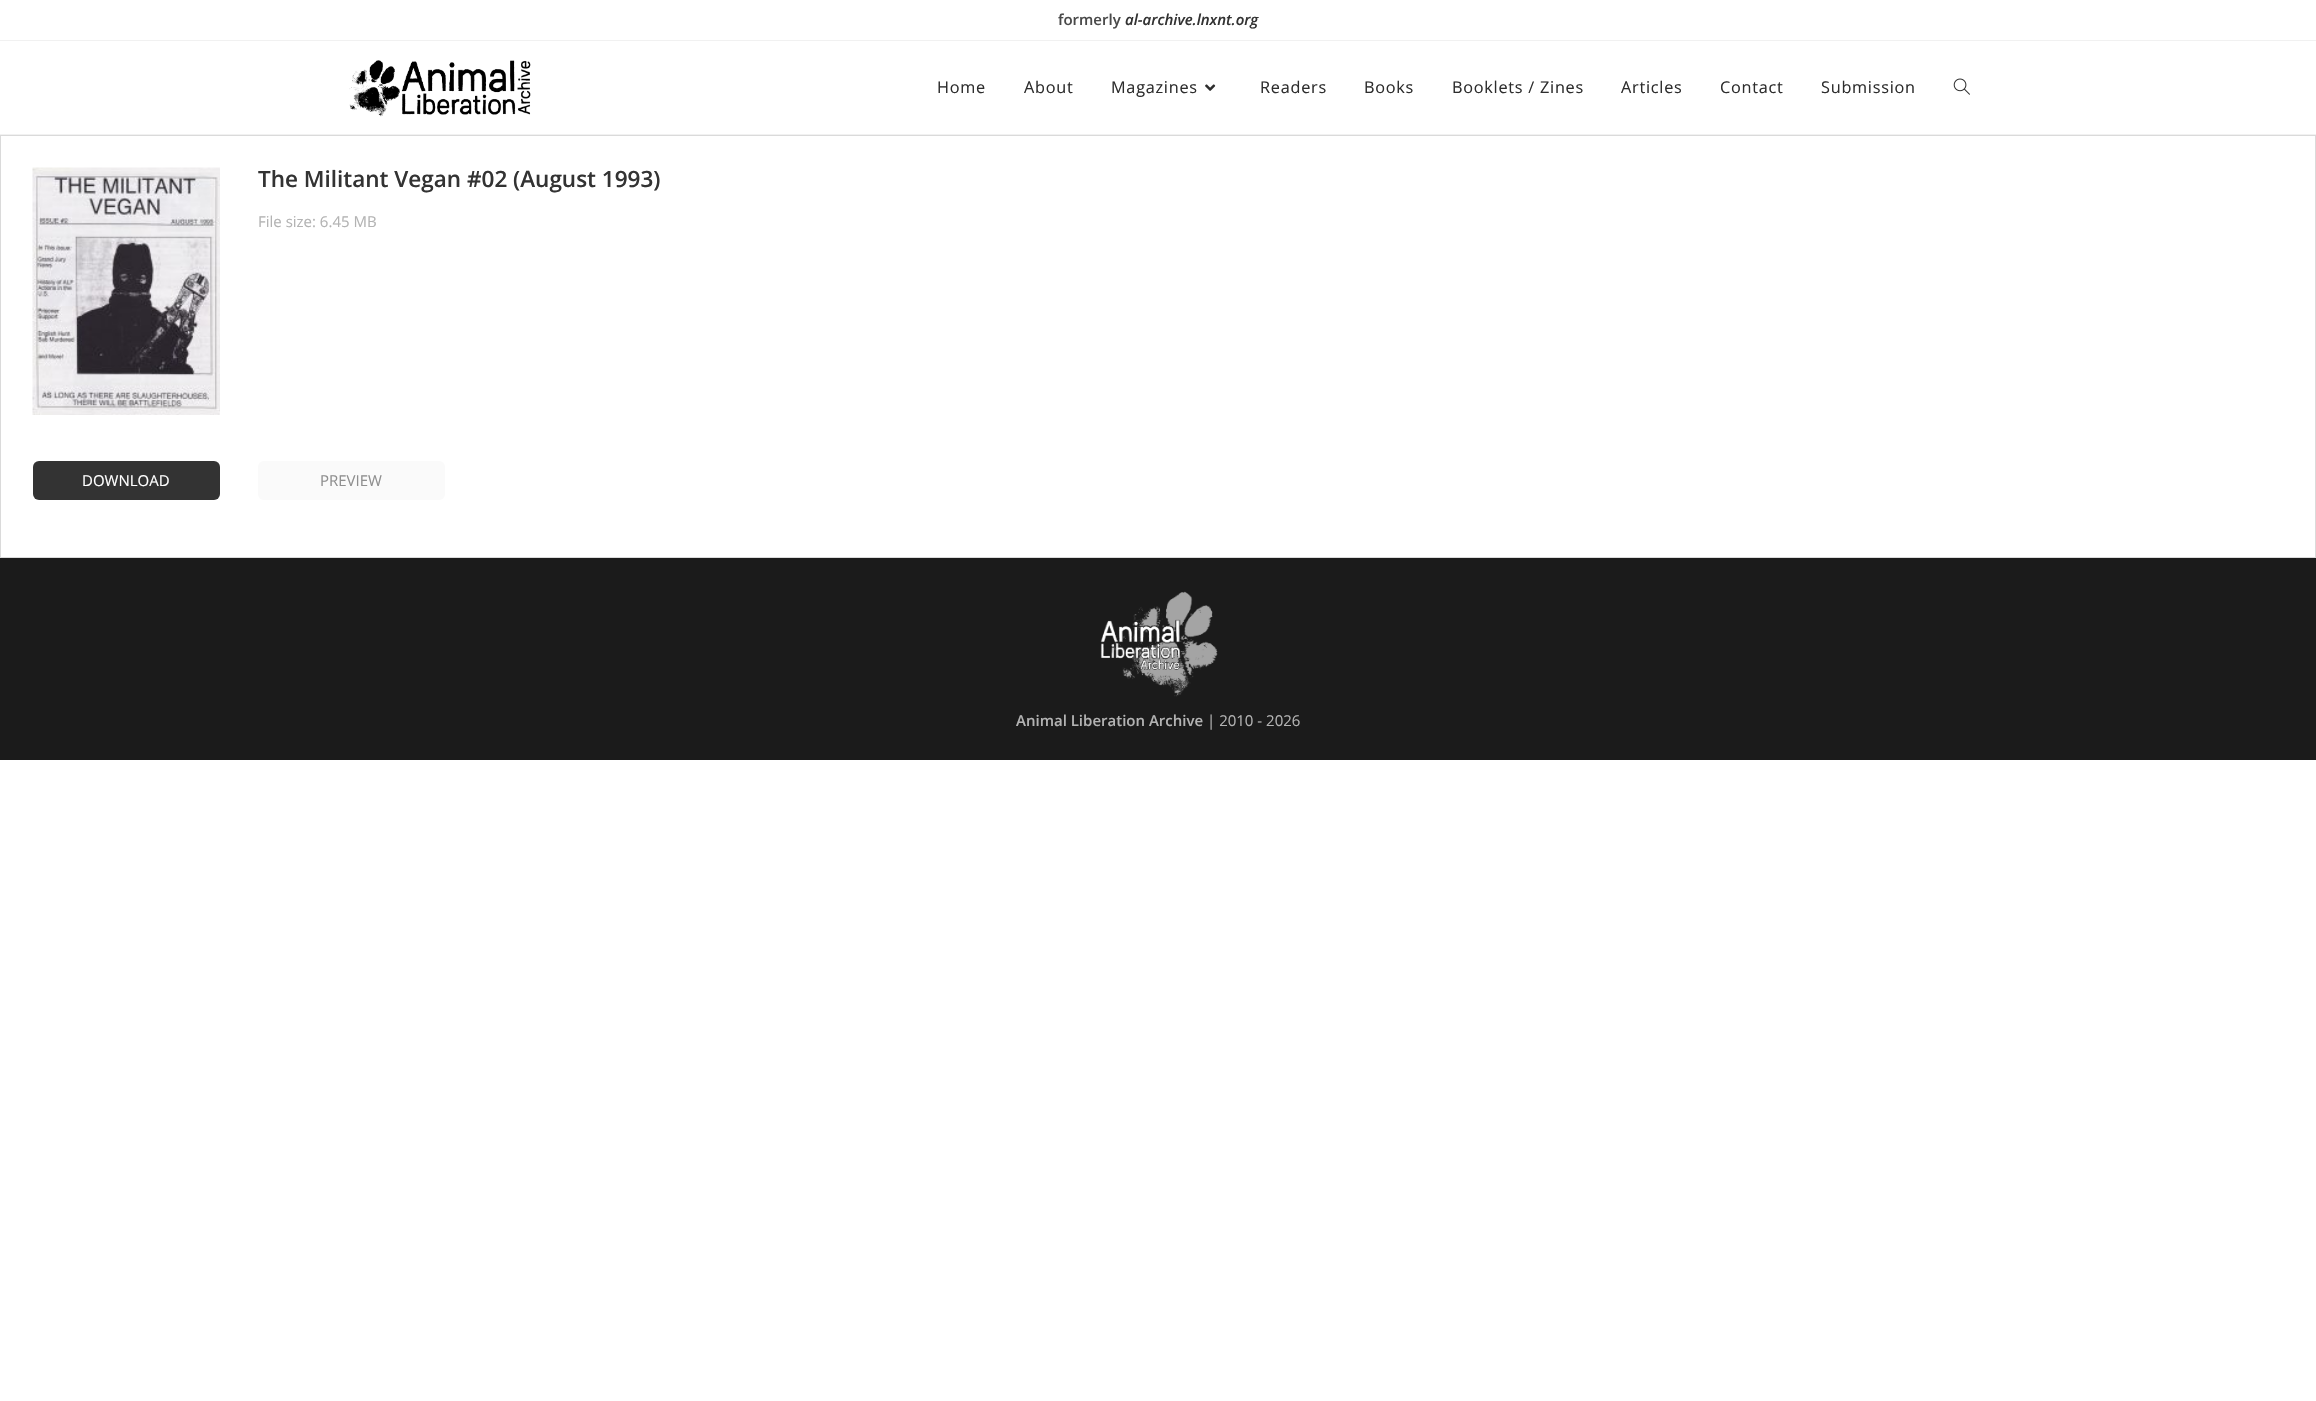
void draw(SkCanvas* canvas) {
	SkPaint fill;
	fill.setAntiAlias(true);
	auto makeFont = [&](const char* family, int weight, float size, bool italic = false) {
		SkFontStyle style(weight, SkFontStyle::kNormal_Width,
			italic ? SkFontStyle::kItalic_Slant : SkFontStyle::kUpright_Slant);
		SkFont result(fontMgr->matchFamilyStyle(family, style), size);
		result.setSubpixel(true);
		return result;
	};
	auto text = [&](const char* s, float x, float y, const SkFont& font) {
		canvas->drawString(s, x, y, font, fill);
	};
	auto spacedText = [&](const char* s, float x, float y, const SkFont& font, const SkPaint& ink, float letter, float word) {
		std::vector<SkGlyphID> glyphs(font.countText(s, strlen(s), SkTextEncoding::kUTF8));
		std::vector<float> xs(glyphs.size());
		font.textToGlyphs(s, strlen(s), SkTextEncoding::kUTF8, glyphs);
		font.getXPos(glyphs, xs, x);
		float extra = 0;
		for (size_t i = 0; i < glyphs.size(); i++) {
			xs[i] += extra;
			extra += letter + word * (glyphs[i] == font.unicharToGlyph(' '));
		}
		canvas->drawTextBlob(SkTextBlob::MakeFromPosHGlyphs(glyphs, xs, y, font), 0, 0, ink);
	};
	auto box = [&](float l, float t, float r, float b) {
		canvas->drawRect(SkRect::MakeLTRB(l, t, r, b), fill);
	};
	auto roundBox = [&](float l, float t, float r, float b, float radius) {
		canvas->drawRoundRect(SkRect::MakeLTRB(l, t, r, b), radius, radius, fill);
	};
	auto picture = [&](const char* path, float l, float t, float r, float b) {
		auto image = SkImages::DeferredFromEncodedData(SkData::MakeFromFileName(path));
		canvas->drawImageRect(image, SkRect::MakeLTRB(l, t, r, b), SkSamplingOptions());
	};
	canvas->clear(0xFFFFFFFF);
	fill.setColor(0xFFF1F1F1);
	box(0, 40, 2316, 41);
	box(0, 134, 2316, 135);
	picture("image0.png", 349, 60, 531, 117);
	picture("image1.png", 1205, 84, 1216, 91);
	picture("image2.png", 1953, 78, 1970, 95);
	fill.setStyle(SkPaint::kStroke_Style);
	fill.setStrokeWidth(1);
	fill.setColor(0xFFDADADA);
	canvas->drawRect(SkRect::MakeLTRB(0.5f, 135.5f, 2315.5f, 557.5f), fill);
	picture("image3.png", 32, 167, 220, 415);
	fill.setStyle(SkPaint::kFill_Style);
	fill.setColor(0xFF333333);
	roundBox(33, 461, 220, 500, 6);
	fill.setColor(0xFFFAFAFA);
	roundBox(258, 461, 445, 500, 6);
	fill.setColor(0xFF1B1B1B);
	box(0, 558, 2316, 760);
	picture("image4.png", 1100, 591, 1218, 697);
	auto font1 = makeFont("Open Sans", 600, 15);
	fill.setColor(0xFF4A4A4A);
	text("formerly", 1058, 25, font1);
	auto font2 = makeFont("Open Sans", 600, 15, true);
	fill.setColor(0xFF333333);
	text("al-archive.lnxnt.org", 1125, 25, font2);
	auto font3 = makeFont("Open Sans", 400, 16.25f);
	fill.setColor(0xFF2D2D2D);
	spacedText("Home", 937, 93, font3, fill, 0.75f, 0);
	spacedText("About", 1024, 93, font3, fill, 0.75f, 0);
	spacedText("Magazines", 1111, 93, font3, fill, 0.75f, 0);
	spacedText("Readers", 1260, 93, font3, fill, 0.75f, 0);
	spacedText("Books", 1364, 93, font3, fill, 0.75f, 0);
	spacedText("Booklets / Zines", 1452, 93, font3, fill, 0.75f, 0);
	spacedText("Articles", 1621, 93, font3, fill, 0.75f, 0);
	spacedText("Contact", 1720, 93, font3, fill, 0.75f, 0);
	spacedText("Submission", 1821, 93, font3, fill, 0.75f, 0);
	auto font4 = makeFont("Open Sans", 600, 22.5f);
	fill.setColor(0xFF333333);
	text("The Militant Vegan #02 (August 1993)", 258, 187, font4);
	auto font5 = makeFont("Open Sans", 400, 15);
	fill.setColor(0xFFB3B3B3);
	text("File size: 6.45 MB", 258, 227, font5);
	fill.setColor(0xFFFFFFFF);
	text("DOWNLOAD", 82, 486, font5);
	fill.setColor(0xFF8F8F8F);
	text("PREVIEW", 320, 486, font5);
	fill.setColor(0xFFB3B3B3);
	text("Animal Liberation Archive", 1016, 726, font1);
	text("| 2010 - 2026", 1207, 726, font5);
}
